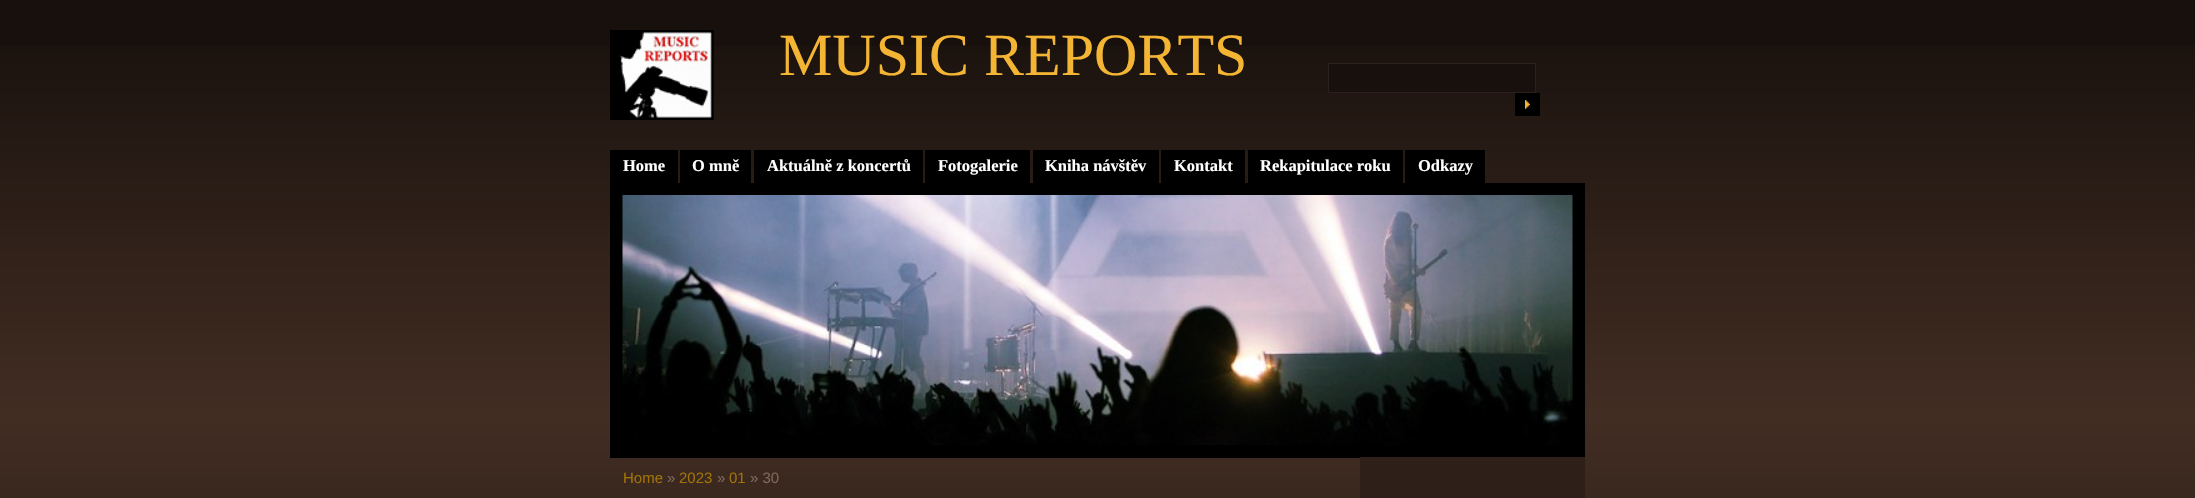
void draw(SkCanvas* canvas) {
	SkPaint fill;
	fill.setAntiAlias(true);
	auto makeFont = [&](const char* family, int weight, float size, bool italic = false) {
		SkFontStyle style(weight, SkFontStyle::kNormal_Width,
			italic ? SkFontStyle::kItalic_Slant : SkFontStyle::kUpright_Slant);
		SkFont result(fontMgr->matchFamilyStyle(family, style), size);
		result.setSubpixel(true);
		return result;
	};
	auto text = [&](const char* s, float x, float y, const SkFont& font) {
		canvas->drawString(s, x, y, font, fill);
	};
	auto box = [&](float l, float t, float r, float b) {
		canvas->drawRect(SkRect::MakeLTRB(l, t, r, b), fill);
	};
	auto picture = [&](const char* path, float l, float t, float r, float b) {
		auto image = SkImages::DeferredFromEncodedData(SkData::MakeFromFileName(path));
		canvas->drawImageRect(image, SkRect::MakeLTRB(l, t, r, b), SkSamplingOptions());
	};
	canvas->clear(0xFF17100C);
	picture("image0.png", 0, 46, 2195, 498);
	fill.setColor(0xFF000000);
	box(610, 183, 1585, 458);
	picture("image1.png", 622, 195, 1573, 445);
	picture("image2.png", 610, 30, 714, 120);
	fill.setColor(0xFF2E1F18);
	box(1360, 457, 1585, 498);
	fill.setColor(0xFF18100D);
	canvas->drawRect(SkRect::MakeLTRB(1328.5f, 63.5f, 1535.5f, 92.5f), fill);
	fill.setStyle(SkPaint::kStroke_Style);
	fill.setStrokeWidth(1);
	fill.setColor(0xFF2C201A);
	canvas->drawRect(SkRect::MakeLTRB(1328.5f, 63.5f, 1535.5f, 92.5f), fill);
	fill.setStyle(SkPaint::kFill_Style);
	fill.setColor(0xFF000000);
	box(1515, 93, 1540, 116);
	picture("image3.png", 1525, 100, 1530, 109);
	box(610, 150, 678, 183);
	box(680, 150, 751, 183);
	box(754, 150, 923, 183);
	box(925, 150, 1030, 183);
	box(1033, 150, 1159, 183);
	box(1161, 150, 1245, 183);
	box(1248, 150, 1403, 183);
	box(1405, 150, 1485, 183);
	auto font1 = makeFont("Liberation Serif", 400, 60);
	fill.setColor(0xFFF3B533);
	text("MUSIC REPORTS", 779, 75, font1);
	auto font2 = makeFont("Liberation Serif", 700, 16.5f);
	fill.setColor(0xFFFFFFFF);
	text("Home", 623, 171, font2);
	text("O mně", 692, 171, font2);
	text("Aktuálně z koncertů", 767, 171, font2);
	text("Fotogalerie", 938, 171, font2);
	text("Kniha návštěv", 1045, 171, font2);
	text("Kontakt", 1174, 171, font2);
	text("Rekapitulace roku", 1260, 171, font2);
	text("Odkazy", 1418, 171, font2);
	auto font3 = makeFont("Liberation Sans", 400, 15);
	fill.setColor(0xFFA07207);
	text("Home", 623, 483, font3);
	fill.setColor(0xFF7F675C);
	text("»", 667, 483, font3);
	fill.setColor(0xFFA07207);
	text("2023", 679, 483, font3);
	fill.setColor(0xFF7F675C);
	text("»", 717, 483, font3);
	fill.setColor(0xFFA07207);
	text("01", 729, 483, font3);
	fill.setColor(0xFF7F675C);
	text("» 30", 750, 483, font3);
}
